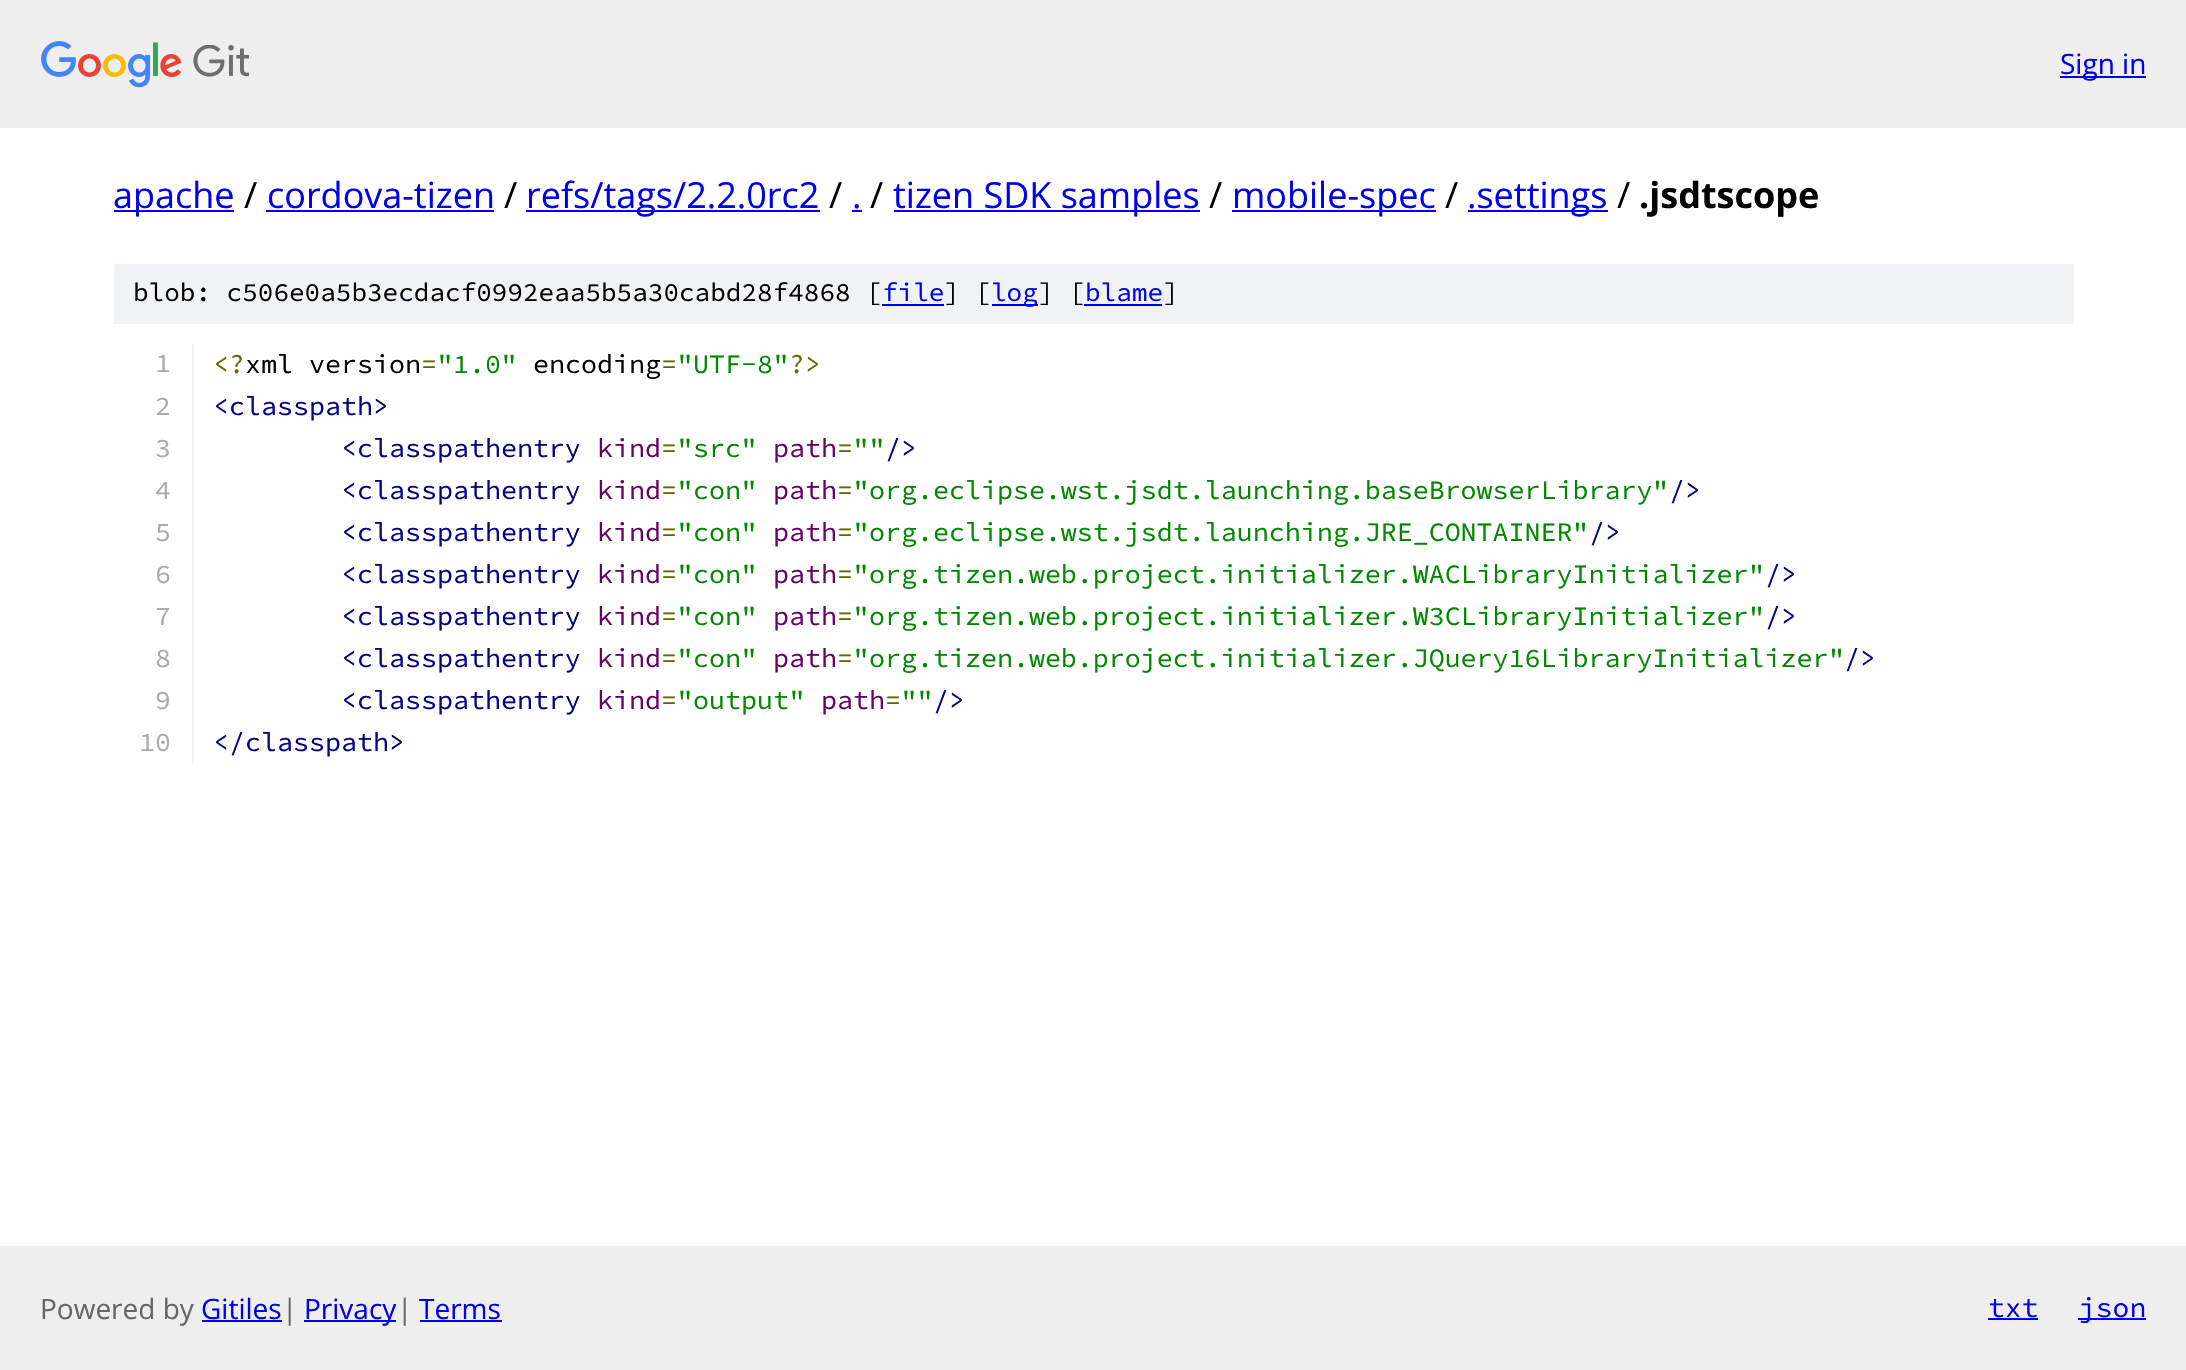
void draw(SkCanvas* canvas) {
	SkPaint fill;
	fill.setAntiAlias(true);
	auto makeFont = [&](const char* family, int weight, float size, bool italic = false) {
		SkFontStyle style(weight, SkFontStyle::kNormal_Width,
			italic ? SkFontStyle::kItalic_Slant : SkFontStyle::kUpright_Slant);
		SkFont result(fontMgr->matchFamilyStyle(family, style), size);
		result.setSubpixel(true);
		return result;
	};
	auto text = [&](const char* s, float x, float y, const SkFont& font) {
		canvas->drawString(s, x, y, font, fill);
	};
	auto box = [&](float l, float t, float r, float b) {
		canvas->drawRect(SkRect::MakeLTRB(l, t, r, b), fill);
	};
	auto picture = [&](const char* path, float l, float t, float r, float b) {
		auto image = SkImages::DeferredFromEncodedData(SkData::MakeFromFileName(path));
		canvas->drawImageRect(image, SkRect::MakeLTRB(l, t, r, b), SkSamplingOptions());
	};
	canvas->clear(0xFFFFFFFF);
	fill.setColor(0xFFEEEEEE);
	box(0, 0, 2186, 128);
	picture("image0.png", 41, 41, 249, 88);
	fill.setColor(0xFF0000EE);
	box(2060, 76, 2146, 78);
	box(114, 210, 234, 212);
	box(266, 210, 494, 212);
	box(526, 210, 820, 212);
	box(852, 210, 862, 212);
	box(894, 210, 1200, 212);
	box(1232, 210, 1436, 212);
	box(1468, 210, 1608, 212);
	fill.setColor(0xFFF1F2F3);
	box(114, 264, 2074, 324);
	fill.setColor(0xFF0000EE);
	box(882, 304, 944, 306);
	box(992, 304, 1038, 306);
	box(1084, 304, 1162, 306);
	fill.setColor(0xFFF1F2F3);
	box(192, 344, 194, 764);
	fill.setColor(0xFFEEEEEE);
	box(0, 1246, 2186, 1370);
	fill.setColor(0xFF0000EE);
	box(202, 1320, 282, 1322);
	box(304, 1320, 396, 1322);
	box(420, 1320, 502, 1322);
	box(1988, 1318, 2038, 1320);
	box(2078, 1318, 2146, 1320);
	auto font1 = makeFont("Open Sans", 400, 28);
	text("Sign in", 2060, 74, font1);
	auto font2 = makeFont("Open Sans", 400, 36);
	text("apache", 113, 208, font2);
	fill.setColor(0xFF000000);
	text("/", 244, 208, font2);
	fill.setColor(0xFF0000EE);
	text("cordova-tizen", 267, 208, font2);
	fill.setColor(0xFF000000);
	text("/", 504, 208, font2);
	fill.setColor(0xFF0000EE);
	text("refs/tags/2.2.0rc2", 526, 208, font2);
	fill.setColor(0xFF000000);
	text("/", 829, 208, font2);
	fill.setColor(0xFF0000EE);
	text(".", 852, 208, font2);
	fill.setColor(0xFF000000);
	text("/", 870, 208, font2);
	fill.setColor(0xFF0000EE);
	text("tizen SDK samples", 893, 208, font2);
	fill.setColor(0xFF000000);
	text("/", 1209, 208, font2);
	fill.setColor(0xFF0000EE);
	text("mobile-spec", 1232, 208, font2);
	fill.setColor(0xFF000000);
	text("/", 1445, 208, font2);
	fill.setColor(0xFF0000EE);
	text(".settings", 1467, 208, font2);
	fill.setColor(0xFF000000);
	text("/", 1617, 208, font2);
	auto font3 = makeFont("Open Sans", 700, 36);
	text(".jsdtscope", 1639, 208, font3);
	auto font4 = makeFont("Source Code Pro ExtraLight", 200, 26);
	text("blob: c506e0a5b3ecdacf0992eaa5b5a30cabd28f4868 [", 133, 301, font4);
	fill.setColor(0xFF0000EE);
	text("file", 882, 301, font4);
	fill.setColor(0xFF000000);
	text("] [", 944, 301, font4);
	fill.setColor(0xFF0000EE);
	text("log", 991, 301, font4);
	fill.setColor(0xFF000000);
	text("] [", 1038, 301, font4);
	fill.setColor(0xFF0000EE);
	text("blame", 1085, 301, font4);
	fill.setColor(0xFF000000);
	text("]", 1163, 301, font4);
	auto font5 = makeFont("Source Code Pro ExtraLight", 200, 26.65f);
	fill.setColor(0xFFAAAAAA);
	text("1", 155, 372, font5);
	fill.setColor(0xFF666600);
	text("<?", 213, 373, font5);
	fill.setColor(0xFF000000);
	text("xml version", 245, 373, font5);
	fill.setColor(0xFF666600);
	text("=", 421, 373, font5);
	fill.setColor(0xFF008800);
	text("\"1.0\"", 437, 373, font5);
	fill.setColor(0xFF000000);
	text("encoding", 533, 373, font5);
	fill.setColor(0xFF666600);
	text("=", 661, 373, font5);
	fill.setColor(0xFF008800);
	text("\"UTF-8\"", 677, 373, font5);
	fill.setColor(0xFF666600);
	text("?>", 789, 373, font5);
	fill.setColor(0xFFAAAAAA);
	text("2", 155, 415, font5);
	fill.setColor(0xFF000088);
	text("<classpath>", 213, 415, font5);
	fill.setColor(0xFFAAAAAA);
	text("3", 155, 457, font5);
	fill.setColor(0xFF000088);
	text("<classpathentry", 341, 457, font5);
	fill.setColor(0xFF660066);
	text("kind", 597, 457, font5);
	fill.setColor(0xFF666600);
	text("=", 661, 457, font5);
	fill.setColor(0xFF008800);
	text("\"src\"", 677, 457, font5);
	fill.setColor(0xFF660066);
	text("path", 773, 457, font5);
	fill.setColor(0xFF666600);
	text("=", 837, 457, font5);
	fill.setColor(0xFF008800);
	text("\"\"", 853, 457, font5);
	fill.setColor(0xFF000088);
	text("/>", 885, 457, font5);
	fill.setColor(0xFFAAAAAA);
	text("4", 155, 499, font5);
	fill.setColor(0xFF000088);
	text("<classpathentry", 341, 499, font5);
	fill.setColor(0xFF660066);
	text("kind", 597, 499, font5);
	fill.setColor(0xFF666600);
	text("=", 661, 499, font5);
	fill.setColor(0xFF008800);
	text("\"con\"", 677, 499, font5);
	fill.setColor(0xFF660066);
	text("path", 773, 499, font5);
	fill.setColor(0xFF666600);
	text("=", 837, 499, font5);
	fill.setColor(0xFF008800);
	text("\"org.eclipse.wst.jsdt.launching.baseBrowserLibrary\"", 853, 499, font5);
	fill.setColor(0xFF000088);
	text("/>", 1669, 499, font5);
	fill.setColor(0xFFAAAAAA);
	text("5", 155, 541, font5);
	fill.setColor(0xFF000088);
	text("<classpathentry", 341, 541, font5);
	fill.setColor(0xFF660066);
	text("kind", 597, 541, font5);
	fill.setColor(0xFF666600);
	text("=", 661, 541, font5);
	fill.setColor(0xFF008800);
	text("\"con\"", 677, 541, font5);
	fill.setColor(0xFF660066);
	text("path", 773, 541, font5);
	fill.setColor(0xFF666600);
	text("=", 837, 541, font5);
	fill.setColor(0xFF008800);
	text("\"org.eclipse.wst.jsdt.launching.JRE_CONTAINER\"", 853, 541, font5);
	fill.setColor(0xFF000088);
	text("/>", 1589, 541, font5);
	fill.setColor(0xFFAAAAAA);
	text("6", 155, 583, font5);
	fill.setColor(0xFF000088);
	text("<classpathentry", 341, 583, font5);
	fill.setColor(0xFF660066);
	text("kind", 597, 583, font5);
	fill.setColor(0xFF666600);
	text("=", 661, 583, font5);
	fill.setColor(0xFF008800);
	text("\"con\"", 677, 583, font5);
	fill.setColor(0xFF660066);
	text("path", 773, 583, font5);
	fill.setColor(0xFF666600);
	text("=", 837, 583, font5);
	fill.setColor(0xFF008800);
	text("\"org.tizen.web.project.initializer.WACLibraryInitializer\"", 853, 583, font5);
	fill.setColor(0xFF000088);
	text("/>", 1765, 583, font5);
	fill.setColor(0xFFAAAAAA);
	text("7", 155, 625, font5);
	fill.setColor(0xFF000088);
	text("<classpathentry", 341, 625, font5);
	fill.setColor(0xFF660066);
	text("kind", 597, 625, font5);
	fill.setColor(0xFF666600);
	text("=", 661, 625, font5);
	fill.setColor(0xFF008800);
	text("\"con\"", 677, 625, font5);
	fill.setColor(0xFF660066);
	text("path", 773, 625, font5);
	fill.setColor(0xFF666600);
	text("=", 837, 625, font5);
	fill.setColor(0xFF008800);
	text("\"org.tizen.web.project.initializer.W3CLibraryInitializer\"", 853, 625, font5);
	fill.setColor(0xFF000088);
	text("/>", 1765, 625, font5);
	fill.setColor(0xFFAAAAAA);
	text("8", 155, 667, font5);
	fill.setColor(0xFF000088);
	text("<classpathentry", 341, 667, font5);
	fill.setColor(0xFF660066);
	text("kind", 597, 667, font5);
	fill.setColor(0xFF666600);
	text("=", 661, 667, font5);
	fill.setColor(0xFF008800);
	text("\"con\"", 677, 667, font5);
	fill.setColor(0xFF660066);
	text("path", 773, 667, font5);
	fill.setColor(0xFF666600);
	text("=", 837, 667, font5);
	fill.setColor(0xFF008800);
	text("\"org.tizen.web.project.initializer.JQuery16LibraryInitializer\"", 853, 667, font5);
	fill.setColor(0xFF000088);
	text("/>", 1844, 667, font5);
	fill.setColor(0xFFAAAAAA);
	text("9", 155, 709, font5);
	fill.setColor(0xFF000088);
	text("<classpathentry", 341, 709, font5);
	fill.setColor(0xFF660066);
	text("kind", 597, 709, font5);
	fill.setColor(0xFF666600);
	text("=", 661, 709, font5);
	fill.setColor(0xFF008800);
	text("\"output\"", 677, 709, font5);
	fill.setColor(0xFF660066);
	text("path", 821, 709, font5);
	fill.setColor(0xFF666600);
	text("=", 885, 709, font5);
	fill.setColor(0xFF008800);
	text("\"\"", 901, 709, font5);
	fill.setColor(0xFF000088);
	text("/>", 933, 709, font5);
	fill.setColor(0xFFAAAAAA);
	text("10", 139, 751, font5);
	fill.setColor(0xFF000088);
	text("</classpath>", 213, 751, font5);
	fill.setColor(0xFF666666);
	text("Powered by", 40, 1319, font1);
	fill.setColor(0xFF0000EE);
	text("Gitiles", 201, 1319, font1);
	fill.setColor(0xFF666666);
	text("|", 282, 1319, font1);
	fill.setColor(0xFF0000EE);
	text("Privacy", 304, 1319, font1);
	fill.setColor(0xFF666666);
	text("|", 397, 1319, font1);
	fill.setColor(0xFF0000EE);
	text("Terms", 419, 1319, font1);
	auto font6 = makeFont("Source Code Pro ExtraLight", 200, 28);
	text("txt", 1988, 1317, font6);
	text("json", 2079, 1317, font6);
}
